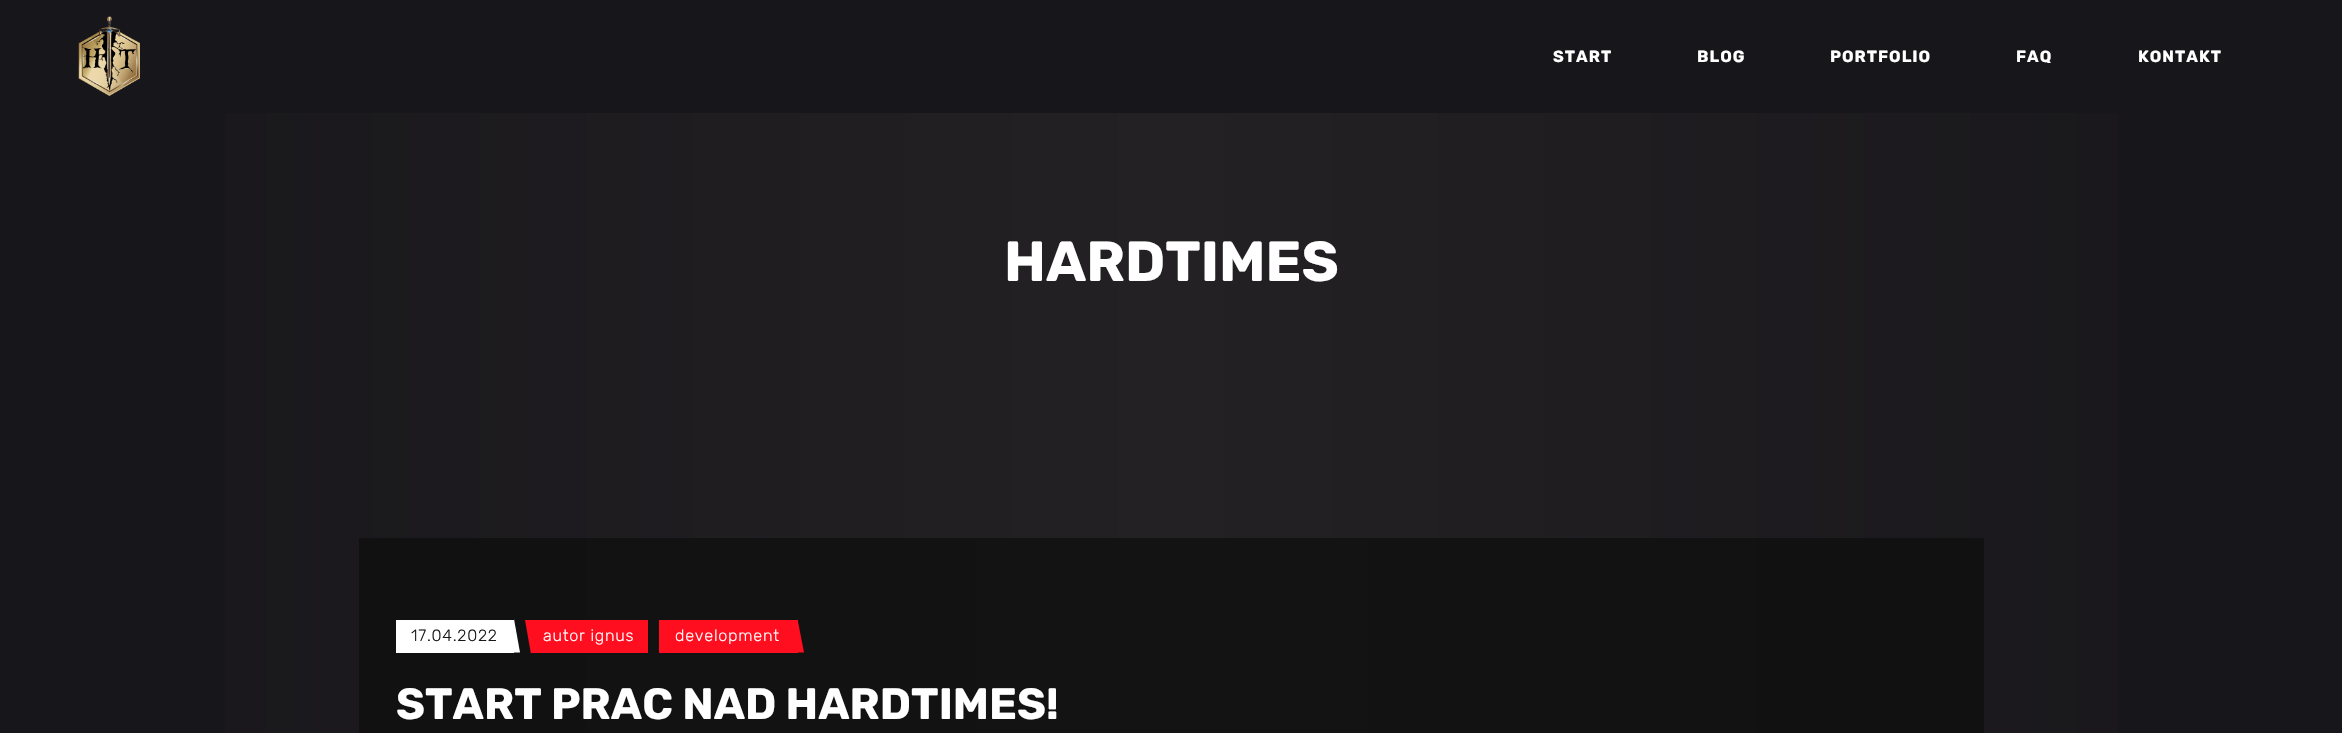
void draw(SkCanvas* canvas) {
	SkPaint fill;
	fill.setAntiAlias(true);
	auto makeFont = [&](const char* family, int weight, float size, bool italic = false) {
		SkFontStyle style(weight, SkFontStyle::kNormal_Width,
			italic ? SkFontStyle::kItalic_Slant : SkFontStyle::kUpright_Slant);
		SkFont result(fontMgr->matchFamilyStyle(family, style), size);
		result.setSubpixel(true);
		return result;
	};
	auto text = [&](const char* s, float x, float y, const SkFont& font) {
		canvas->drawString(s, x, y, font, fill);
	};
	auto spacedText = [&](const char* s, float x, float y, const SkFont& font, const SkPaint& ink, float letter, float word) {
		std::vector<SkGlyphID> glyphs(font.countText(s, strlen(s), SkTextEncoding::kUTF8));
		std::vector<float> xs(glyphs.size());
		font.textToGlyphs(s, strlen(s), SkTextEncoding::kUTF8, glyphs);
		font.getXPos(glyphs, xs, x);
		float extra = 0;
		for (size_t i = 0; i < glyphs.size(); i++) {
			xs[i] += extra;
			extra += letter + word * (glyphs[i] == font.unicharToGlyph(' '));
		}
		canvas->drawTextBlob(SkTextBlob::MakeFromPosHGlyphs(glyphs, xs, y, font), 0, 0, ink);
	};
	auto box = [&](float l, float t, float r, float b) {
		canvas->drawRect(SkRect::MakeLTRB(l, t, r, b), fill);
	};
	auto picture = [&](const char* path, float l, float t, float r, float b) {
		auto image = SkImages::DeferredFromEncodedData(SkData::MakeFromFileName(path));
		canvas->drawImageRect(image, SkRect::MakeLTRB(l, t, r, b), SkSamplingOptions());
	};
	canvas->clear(0xFF17161A);
	picture("image0.png", 78, 16, 140, 97);
	{
		const SkColor colors[] = {0xFF17161A, 0xFF242124, 0xFF17161A};
		const float stops[] = {0, 0.5f, 1};
		const SkPoint ends[] = {{0, 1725}, {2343, 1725}};
		fill.setShader(SkGradientShader::MakeLinear(ends, colors, stops, 3, SkTileMode::kClamp));
		fill.setAlpha(255);
	}
	box(225, 113, 2118, 733);
	{
		const SkColor colors[] = {0xFF111011, 0xFF131313, 0xFF111011};
		const float stops[] = {0, 0.5f, 1};
		const SkPoint ends[] = {{0, 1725}, {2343, 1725}};
		fill.setShader(SkGradientShader::MakeLinear(ends, colors, stops, 3, SkTileMode::kClamp));
		fill.setAlpha(255);
	}
	box(359, 538, 1984, 733);
	fill.setShader(nullptr);
	fill.setColor(0xFFFFFFFF);
	box(396, 620, 514, 653);
	canvas->drawPath(SkPathBuilder().moveTo(520, 652.5f).lineTo(514, 652.5f).lineTo(514, 619).close().detach(), fill);
	fill.setColor(0xFFFF0E1F);
	box(531, 620, 648, 653);
	canvas->drawPath(SkPathBuilder().moveTo(525, 620).lineTo(531, 620).lineTo(531, 654).close().detach(), fill);
	box(659, 620, 798, 653);
	canvas->drawPath(SkPathBuilder().moveTo(804, 652.5f).lineTo(797.5f, 652.5f).lineTo(797.5f, 619).close().detach(), fill);
	auto font1 = makeFont("Rubik", 700, 16.25f);
	fill.setColor(0xFFFFFFFF);
	spacedText("START", 1553, 62, font1, fill, 1, 0);
	spacedText("BLOG", 1697, 62, font1, fill, 1, 0);
	spacedText("PORTFOLIO", 1830, 62, font1, fill, 1, 0);
	spacedText("FAQ", 2016, 62, font1, fill, 1, 0);
	spacedText("KONTAKT", 2138, 62, font1, fill, 1, 0);
	auto font2 = makeFont("Rubik", 700, 56.25f);
	text("HARDTIMES", 1004, 281, font2);
	auto font3 = makeFont("Rubik", 300, 16.25f);
	fill.setColor(0xFF171717);
	spacedText("17.04.2022", 411, 641, font3, fill, 0.75f, 0);
	fill.setColor(0xFFFFFFFF);
	spacedText("autor ignus", 543, 641, font3, fill, 0.75f, 0);
	spacedText("development", 675, 641, font3, fill, 0.75f, 0);
	auto font4 = makeFont("Rubik", 700, 43.75f);
	text("START PRAC NAD HARDTIMES!", 396, 719, font4);
}
